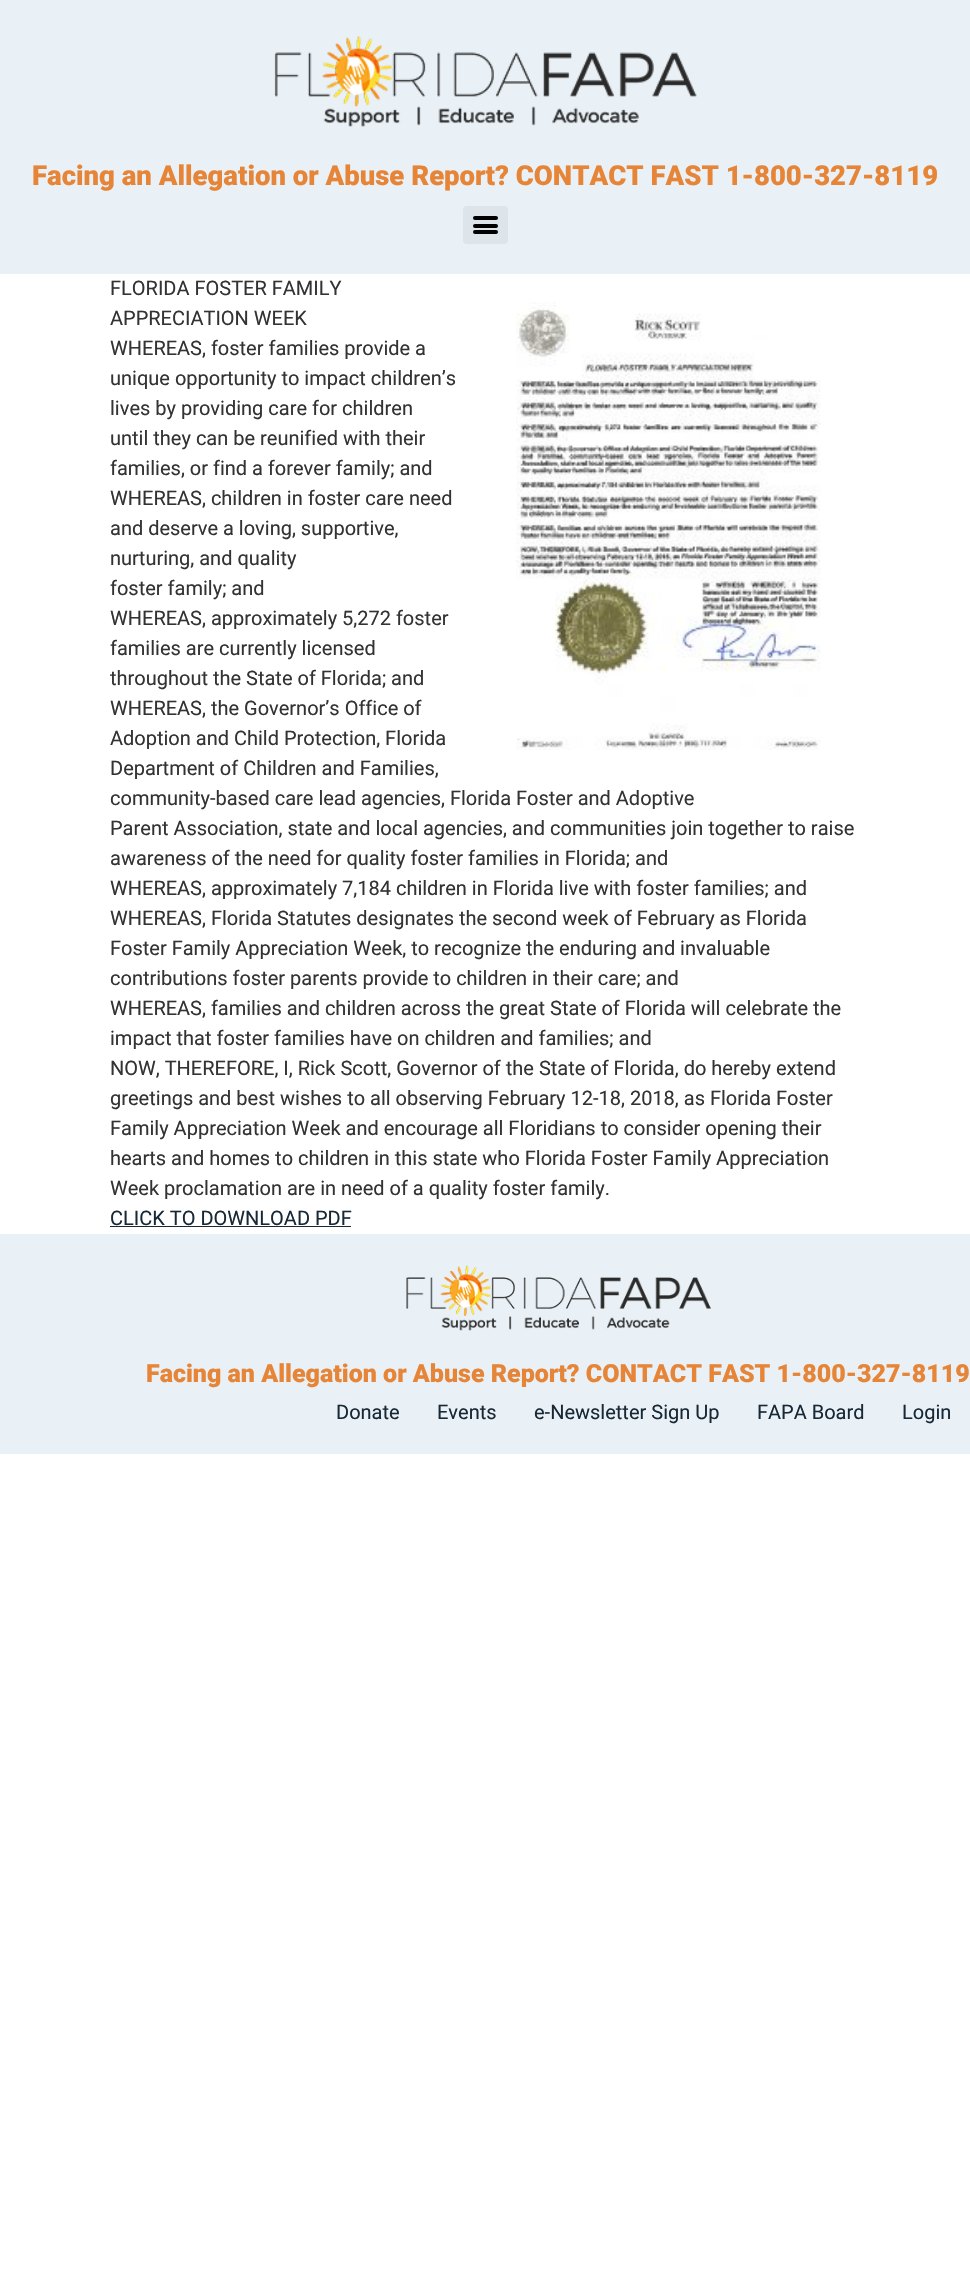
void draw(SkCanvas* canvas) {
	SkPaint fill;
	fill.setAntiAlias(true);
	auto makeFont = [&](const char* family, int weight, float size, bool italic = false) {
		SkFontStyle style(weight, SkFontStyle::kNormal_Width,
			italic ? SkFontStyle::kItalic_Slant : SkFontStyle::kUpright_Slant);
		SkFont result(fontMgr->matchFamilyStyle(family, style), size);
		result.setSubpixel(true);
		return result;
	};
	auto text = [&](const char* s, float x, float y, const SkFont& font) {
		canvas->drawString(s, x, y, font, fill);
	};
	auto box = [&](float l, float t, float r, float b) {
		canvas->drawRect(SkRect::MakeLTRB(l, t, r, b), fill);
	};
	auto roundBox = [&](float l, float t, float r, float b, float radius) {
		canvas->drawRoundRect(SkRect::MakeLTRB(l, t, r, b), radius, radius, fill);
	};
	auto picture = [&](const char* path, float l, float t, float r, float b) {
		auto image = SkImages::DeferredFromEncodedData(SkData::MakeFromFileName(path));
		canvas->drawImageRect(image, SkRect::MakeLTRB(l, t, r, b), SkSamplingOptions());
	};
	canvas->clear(0xFFFFFFFF);
	fill.setColor(0xFFEAF1F6);
	box(0, 0, 970, 274);
	picture("image0.png", 274, 36, 697, 127);
	fill.setColor(0xFFDEE5EA);
	roundBox(463, 206, 508, 244, 4);
	fill.setColor(0xFF000000);
	roundBox(473, 224, 498, 228, 2);
	roundBox(473, 216, 498, 220, 2);
	roundBox(473, 230, 498, 234, 2);
	picture("image1.png", 516, 302, 821, 750);
	fill.setColor(0xFF172836);
	box(110, 1226, 351, 1227);
	fill.setColor(0xFFEAF1F6);
	box(0, 1234, 970, 1454);
	picture("image2.png", 406, 1265, 711, 1331);
	auto font1 = makeFont("Roboto", 900, 27.5f);
	fill.setColor(0xFFE68537);
	text("Facing an Allegation or Abuse Report? CONTACT FAST 1-800-327-8119", 32, 185, font1);
	auto font2 = makeFont("Roboto", 400, 20);
	fill.setColor(0xFF333333);
	text("FLORIDA FOSTER FAMILY", 110, 295, font2);
	text("APPRECIATION WEEK", 110, 325, font2);
	text("WHEREAS, foster families provide a", 110, 355, font2);
	text("unique opportunity to impact children’s", 110, 385, font2);
	text("lives by providing care for children", 110, 415, font2);
	text("until they can be reunified with their", 110, 445, font2);
	text("families, or find a forever family; and", 110, 475, font2);
	text("WHEREAS, children in foster care need", 110, 505, font2);
	text("and deserve a loving, supportive,", 110, 535, font2);
	text("nurturing, and quality", 110, 565, font2);
	text("foster family; and", 110, 595, font2);
	text("WHEREAS, approximately 5,272 foster", 110, 625, font2);
	text("families are currently licensed", 110, 655, font2);
	text("throughout the State of Florida; and", 110, 685, font2);
	text("WHEREAS, the Governor’s Office of", 110, 715, font2);
	text("Adoption and Child Protection, Florida", 110, 745, font2);
	text("Department of Children and Families,", 110, 775, font2);
	text("community-based care lead agencies, Florida Foster and Adoptive", 110, 805, font2);
	text("Parent Association, state and local agencies, and communities join together to raise", 110, 835, font2);
	text("awareness of the need for quality foster families in Florida; and", 110, 865, font2);
	text("WHEREAS, approximately 7,184 children in Florida live with foster families; and", 110, 895, font2);
	text("WHEREAS, Florida Statutes designates the second week of February as Florida", 110, 925, font2);
	text("Foster Family Appreciation Week, to recognize the enduring and invaluable", 110, 955, font2);
	text("contributions foster parents provide to children in their care; and", 110, 985, font2);
	text("WHEREAS, families and children across the great State of Florida will celebrate the", 110, 1015, font2);
	text("impact that foster families have on children and families; and", 110, 1045, font2);
	text("NOW, THEREFORE, I, Rick Scott, Governor of the State of Florida, do hereby extend", 110, 1075, font2);
	text("greetings and best wishes to all observing February 12-18, 2018, as Florida Foster", 110, 1105, font2);
	text("Family Appreciation Week and encourage all Floridians to consider opening their", 110, 1135, font2);
	text("hearts and homes to children in this state who Florida Foster Family Appreciation", 110, 1165, font2);
	text("Week proclamation are in need of a quality foster family.", 110, 1195, font2);
	fill.setColor(0xFF172836);
	text("CLICK TO DOWNLOAD PDF", 110, 1225, font2);
	auto font3 = makeFont("Roboto", 900, 25);
	fill.setColor(0xFFE68537);
	text("Facing an Allegation or Abuse Report? CONTACT FAST 1-800-327-8119", 146, 1382, font3);
	fill.setColor(0xFF172836);
	text("Donate", 336, 1419, font2);
	text("Events", 437, 1419, font2);
	text("e-Newsletter Sign Up", 534, 1419, font2);
	text("FAPA Board", 757, 1419, font2);
	text("Login", 902, 1419, font2);
}
